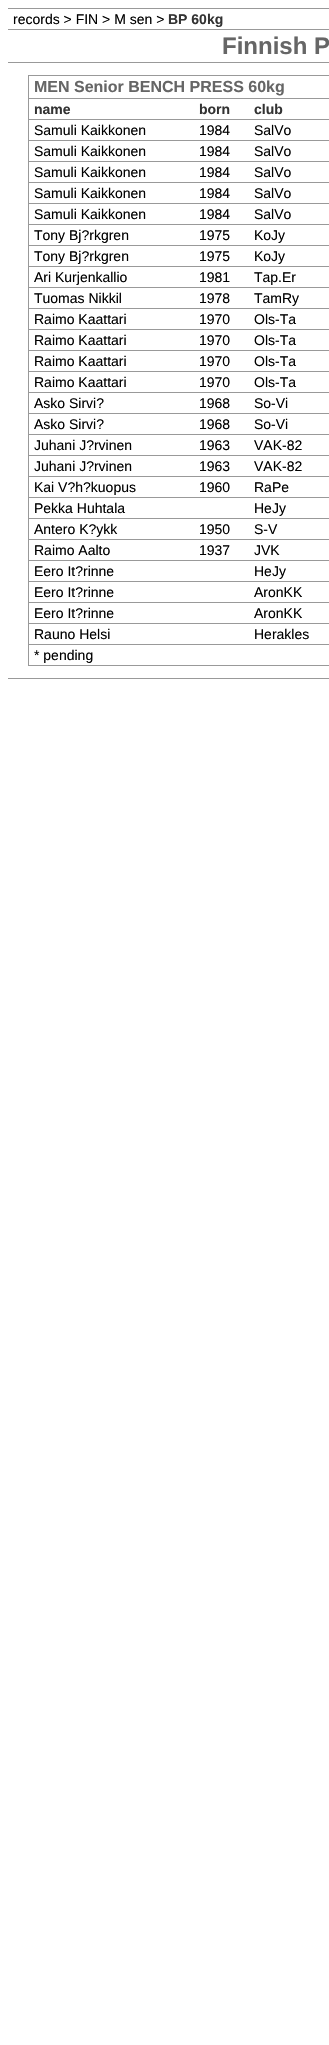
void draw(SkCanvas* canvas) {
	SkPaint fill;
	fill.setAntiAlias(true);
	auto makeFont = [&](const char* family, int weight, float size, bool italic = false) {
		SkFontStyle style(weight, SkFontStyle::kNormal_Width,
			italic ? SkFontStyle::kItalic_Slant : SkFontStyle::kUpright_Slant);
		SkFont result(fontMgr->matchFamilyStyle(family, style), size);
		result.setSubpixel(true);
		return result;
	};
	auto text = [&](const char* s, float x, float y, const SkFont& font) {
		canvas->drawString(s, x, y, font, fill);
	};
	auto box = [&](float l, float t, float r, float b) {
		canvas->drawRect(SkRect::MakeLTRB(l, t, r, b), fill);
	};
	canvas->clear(0xFFFFFFFF);
	fill.setColor(0xFF999999);
	box(8, 8, 329, 9);
	box(8, 29, 329, 30);
	box(8, 62, 329, 63);
	box(28, 75, 329, 76);
	box(28, 665, 329, 666);
	box(28, 75, 29, 666);
	box(28, 98, 329, 99);
	box(28, 119, 329, 120);
	box(28, 140, 329, 141);
	box(28, 161, 329, 162);
	box(28, 182, 329, 183);
	box(28, 203, 329, 204);
	box(28, 224, 329, 225);
	box(28, 245, 329, 246);
	box(28, 266, 329, 267);
	box(28, 287, 329, 288);
	box(28, 308, 329, 309);
	box(28, 329, 329, 330);
	box(28, 350, 329, 351);
	box(28, 371, 329, 372);
	box(28, 392, 329, 393);
	box(28, 413, 329, 414);
	box(28, 434, 329, 435);
	box(28, 455, 329, 456);
	box(28, 476, 329, 477);
	box(28, 497, 329, 498);
	box(28, 518, 329, 519);
	box(28, 539, 329, 540);
	box(28, 560, 329, 561);
	box(28, 581, 329, 582);
	box(28, 602, 329, 603);
	box(28, 623, 329, 624);
	box(28, 644, 329, 645);
	box(8, 678, 329, 679);
	auto font1 = makeFont("Liberation Sans", 400, 14);
	fill.setColor(0xFF000000);
	text("records > FIN > M sen >", 13, 24, font1);
	auto font2 = makeFont("Liberation Sans", 700, 14);
	fill.setColor(0xFF333333);
	text("BP 60kg", 168, 24, font2);
	auto font3 = makeFont("Liberation Sans", 700, 24);
	fill.setColor(0xFF666666);
	text("Finnish P", 222, 54, font3);
	auto font4 = makeFont("Liberation Sans", 700, 16);
	text("MEN Senior BENCH PRESS 60kg", 34, 92, font4);
	fill.setColor(0xFF333333);
	text("name", 34, 114, font2);
	text("born", 199, 114, font2);
	text("club", 254, 114, font2);
	fill.setColor(0xFF000000);
	text("Samuli Kaikkonen", 34, 135, font1);
	text("1984", 199, 135, font1);
	text("SalVo", 254, 135, font1);
	text("Samuli Kaikkonen", 34, 156, font1);
	text("1984", 199, 156, font1);
	text("SalVo", 254, 156, font1);
	text("Samuli Kaikkonen", 34, 177, font1);
	text("1984", 199, 177, font1);
	text("SalVo", 254, 177, font1);
	text("Samuli Kaikkonen", 34, 198, font1);
	text("1984", 199, 198, font1);
	text("SalVo", 254, 198, font1);
	text("Samuli Kaikkonen", 34, 219, font1);
	text("1984", 199, 219, font1);
	text("SalVo", 254, 219, font1);
	text("Tony Bj?rkgren", 34, 240, font1);
	text("1975", 199, 240, font1);
	text("KoJy", 254, 240, font1);
	text("Tony Bj?rkgren", 34, 261, font1);
	text("1975", 199, 261, font1);
	text("KoJy", 254, 261, font1);
	text("Ari Kurjenkallio", 34, 282, font1);
	text("1981", 199, 282, font1);
	text("Tap.Er", 254, 282, font1);
	text("Tuomas Nikkil", 34, 303, font1);
	text("1978", 199, 303, font1);
	text("TamRy", 254, 303, font1);
	text("Raimo Kaattari", 34, 324, font1);
	text("1970", 199, 324, font1);
	text("Ols-Ta", 254, 324, font1);
	text("Raimo Kaattari", 34, 345, font1);
	text("1970", 199, 345, font1);
	text("Ols-Ta", 254, 345, font1);
	text("Raimo Kaattari", 34, 366, font1);
	text("1970", 199, 366, font1);
	text("Ols-Ta", 254, 366, font1);
	text("Raimo Kaattari", 34, 387, font1);
	text("1970", 199, 387, font1);
	text("Ols-Ta", 254, 387, font1);
	text("Asko Sirvi?", 34, 408, font1);
	text("1968", 199, 408, font1);
	text("So-Vi", 254, 408, font1);
	text("Asko Sirvi?", 34, 429, font1);
	text("1968", 199, 429, font1);
	text("So-Vi", 254, 429, font1);
	text("Juhani J?rvinen", 34, 450, font1);
	text("1963", 199, 450, font1);
	text("VAK-82", 254, 450, font1);
	text("Juhani J?rvinen", 34, 471, font1);
	text("1963", 199, 471, font1);
	text("VAK-82", 254, 471, font1);
	text("Kai V?h?kuopus", 34, 492, font1);
	text("1960", 199, 492, font1);
	text("RaPe", 254, 492, font1);
	text("Pekka Huhtala", 34, 513, font1);
	text("HeJy", 254, 513, font1);
	text("Antero K?ykk", 34, 534, font1);
	text("1950", 199, 534, font1);
	text("S-V", 254, 534, font1);
	text("Raimo Aalto", 34, 555, font1);
	text("1937", 199, 555, font1);
	text("JVK", 254, 555, font1);
	text("Eero It?rinne", 34, 576, font1);
	text("HeJy", 254, 576, font1);
	text("Eero It?rinne", 34, 597, font1);
	text("AronKK", 254, 597, font1);
	text("Eero It?rinne", 34, 618, font1);
	text("AronKK", 254, 618, font1);
	text("Rauno Helsi", 34, 639, font1);
	text("Herakles", 254, 639, font1);
	text("* pending", 34, 660, font1);
}
